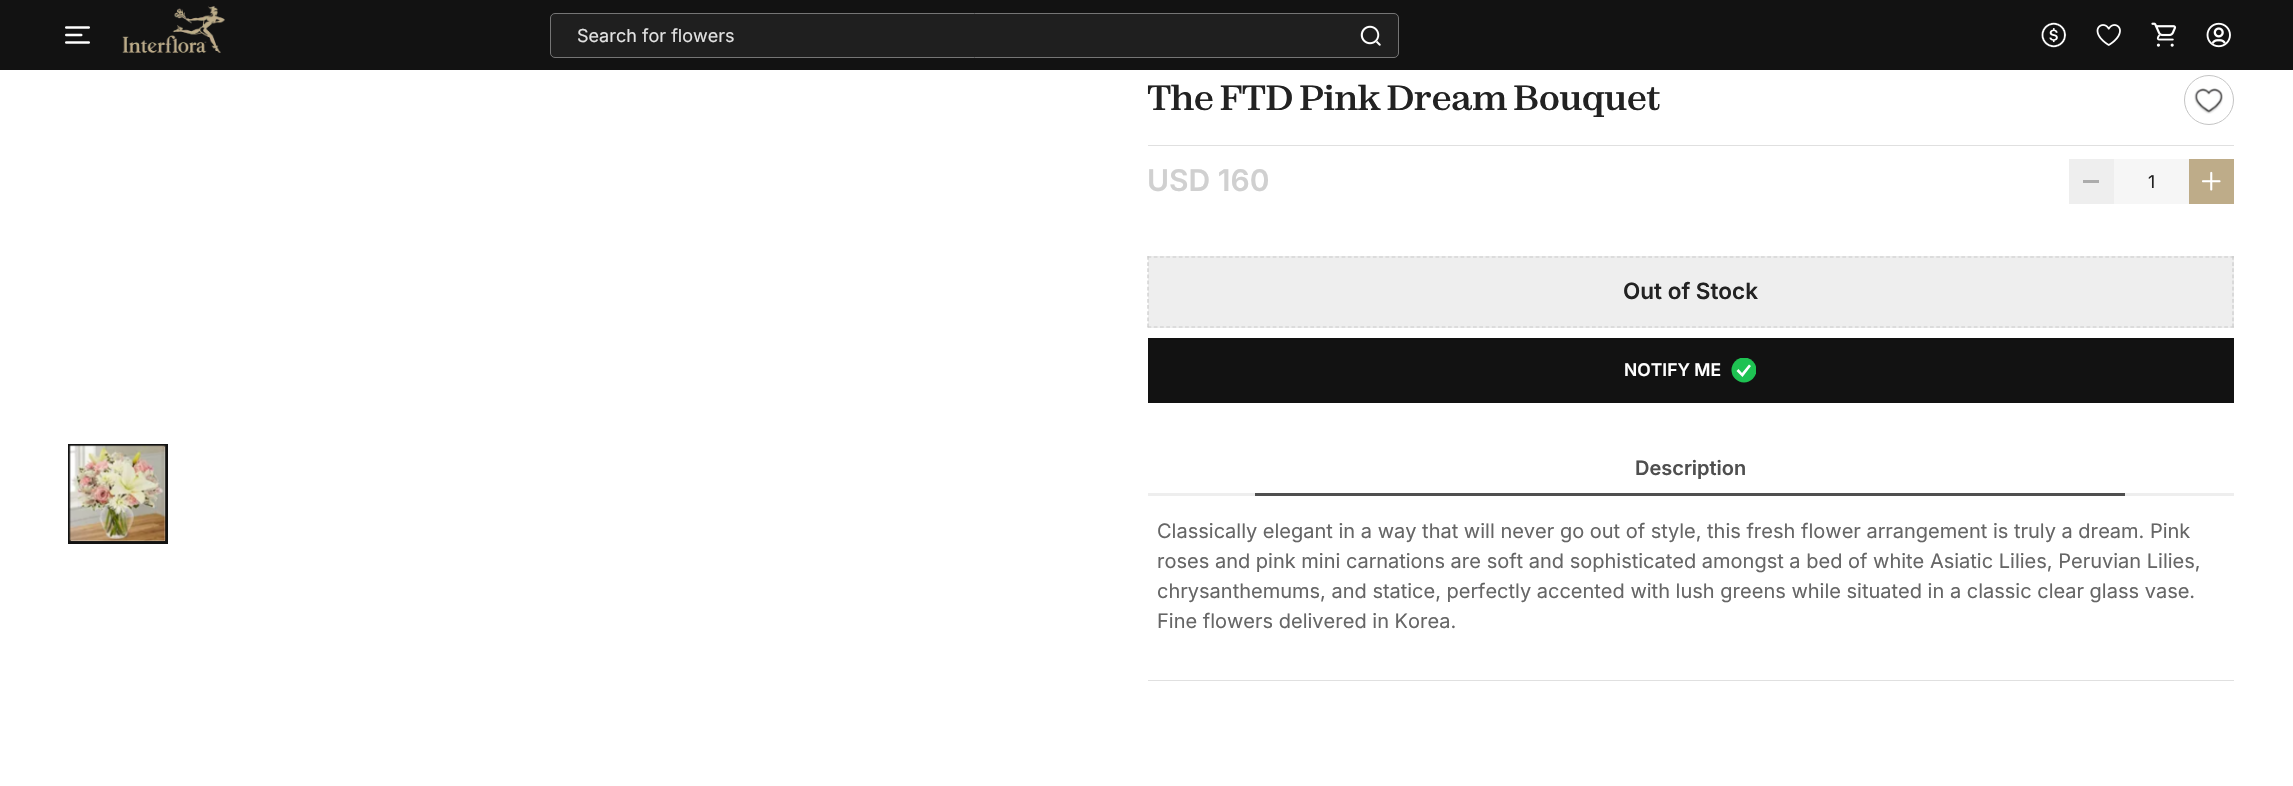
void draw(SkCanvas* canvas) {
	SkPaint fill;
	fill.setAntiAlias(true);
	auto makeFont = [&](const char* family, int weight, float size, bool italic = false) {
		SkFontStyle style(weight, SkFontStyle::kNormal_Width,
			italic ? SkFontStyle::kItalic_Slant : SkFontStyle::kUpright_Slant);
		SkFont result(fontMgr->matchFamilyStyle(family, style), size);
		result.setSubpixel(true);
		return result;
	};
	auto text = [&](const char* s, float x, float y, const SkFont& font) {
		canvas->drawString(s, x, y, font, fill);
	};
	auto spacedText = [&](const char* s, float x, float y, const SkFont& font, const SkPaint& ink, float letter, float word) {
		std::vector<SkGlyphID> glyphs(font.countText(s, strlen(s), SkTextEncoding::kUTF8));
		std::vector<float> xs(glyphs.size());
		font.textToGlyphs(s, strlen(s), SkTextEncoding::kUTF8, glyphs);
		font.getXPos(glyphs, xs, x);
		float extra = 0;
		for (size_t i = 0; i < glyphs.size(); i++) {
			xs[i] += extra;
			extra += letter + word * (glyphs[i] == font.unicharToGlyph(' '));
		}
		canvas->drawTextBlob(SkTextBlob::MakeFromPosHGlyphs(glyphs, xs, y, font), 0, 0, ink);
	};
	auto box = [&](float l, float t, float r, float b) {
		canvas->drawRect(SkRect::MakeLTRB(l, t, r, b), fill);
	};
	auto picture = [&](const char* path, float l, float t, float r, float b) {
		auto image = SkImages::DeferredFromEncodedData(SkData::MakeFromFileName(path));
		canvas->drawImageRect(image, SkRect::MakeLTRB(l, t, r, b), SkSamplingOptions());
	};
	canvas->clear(0xFFFFFFFF);
	fill.setColor(0xFF121212);
	box(0, 0, 2293, 70);
	picture("image0.png", 65, 26, 90, 44);
	picture("image1.png", 122, 6, 225, 53);
	fill.setColor(0xFF1F1F1F);
	canvas->drawRoundRect(SkRect::MakeLTRB(550.5f, 13.5f, 1398.5f, 57.5f), 4.5f, 4.5f, fill);
	fill.setStyle(SkPaint::kStroke_Style);
	fill.setStrokeWidth(1);
	fill.setColor(0xFF757575);
	canvas->drawRoundRect(SkRect::MakeLTRB(550.5f, 13.5f, 1398.5f, 57.5f), 4.5f, 4.5f, fill);
	picture("image2.png", 1360, 25, 1381, 46);
	picture("image3.png", 2041, 22, 2067, 48);
	picture("image4.png", 2096, 24, 2121, 46);
	picture("image5.png", 2151, 22, 2177, 47);
	picture("image6.png", 2206, 22, 2231, 48);
	fill.setStyle(SkPaint::kFill_Style);
	fill.setColor(0xFFF2F2F2);
	canvas->drawRect(SkRect::MakeLTRB(69.5f, 445.5f, 166.5f, 542.5f), fill);
	fill.setStyle(SkPaint::kStroke_Style);
	fill.setStrokeWidth(3);
	fill.setColor(0xFF121212);
	canvas->drawRect(SkRect::MakeLTRB(69.5f, 445.5f, 166.5f, 542.5f), fill);
	picture("image7.png", 69, 445, 166, 542);
	picture("image8.png", 2194, 88, 2223, 114);
	fill.setStrokeWidth(1);
	fill.setColor(0xFFC4C4C4);
	canvas->drawCircle(2209, 100, 24.5f, fill);
	fill.setStyle(SkPaint::kFill_Style);
	fill.setColor(0xFFE0E0E0);
	box(1148, 145, 2234, 146);
	fill.setColor(0xFFEEEEEE);
	box(2069, 159, 2114, 204);
	fill.setColor(0xFFACACAC);
	box(2083, 180, 2099, 183);
	fill.setColor(0xFFF6F6F6);
	box(2114, 159, 2189, 204);
	fill.setColor(0xFFBEAC89);
	box(2189, 159, 2234, 204);
	picture("image9.png", 2202, 171, 2221, 191);
	fill.setColor(0xFFEEEEEE);
	box(1148, 256, 2234, 328);
	fill.setStyle(SkPaint::kStroke_Style);
	fill.setStrokeWidth(1.2f);
	fill.setColor(0xFFCBCBCB);
	fill.setPathEffect(SkDashPathEffect::Make({{3.75f, 2.51f}}, 0));
	canvas->drawPath(SkPathBuilder().moveTo(1147.5f, 257).lineTo(2234, 257).detach(), fill);
	fill.setPathEffect(nullptr);
	fill.setPathEffect(SkDashPathEffect::Make({{3.75f, 2.39f}}, 0));
	canvas->drawPath(SkPathBuilder().moveTo(2233, 256).lineTo(2233, 327.5f).detach(), fill);
	fill.setPathEffect(nullptr);
	fill.setPathEffect(SkDashPathEffect::Make({{3.75f, 2.51f}}, 0));
	canvas->drawPath(SkPathBuilder().moveTo(1147.5f, 327).lineTo(2234, 327).detach(), fill);
	fill.setPathEffect(nullptr);
	fill.setPathEffect(SkDashPathEffect::Make({{3.75f, 2.39f}}, 0));
	canvas->drawPath(SkPathBuilder().moveTo(1148, 256).lineTo(1148, 327.5f).detach(), fill);
	fill.setPathEffect(nullptr);
	fill.setStyle(SkPaint::kFill_Style);
	fill.setColor(0xFF121212);
	box(1148, 338, 2234, 403);
	canvas->save();
	canvas->clipRect(SkRect::MakeLTRB(1731, 358, 1756, 383));
	fill.setColor(0xFF1EC252);
	canvas->drawCircle(1744, 370, 12.5f, fill);
	canvas->restore();
	fill.setColor(0xFFFFFFFF);
	canvas->drawPath(SkPathBuilder().moveTo(1749, 364.5f).lineTo(1742, 373).lineTo(1738.5f, 369).lineTo(1736.5f, 371).lineTo(1742.5f, 377).lineTo(1751, 366).close().detach(), fill);
	fill.setColor(0xFFE0E0E0);
	box(1148, 680, 2234, 681);
	fill.setColor(0xFFEEEEEE);
	box(1148, 493, 2234, 496);
	fill.setColor(0xFF4F4F4F);
	box(1255, 493, 2125, 496);
	auto font1 = makeFont("Inter", 400, 18);
	fill.setColor(0xFFE2E2E2);
	text("Search for flowers", 577, 42, font1);
	auto font2 = makeFont("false", 500, 35);
	fill.setColor(0xFF222222);
	spacedText("The FTD Pink Dream Bouquet", 1147, 110, font2, fill, -0.85f, 0);
	auto font3 = makeFont("Inter", 600, 30);
	fill.setColor(0xFFD0D0D0);
	text("USD 160", 1147, 191, font3);
	auto font4 = makeFont("Inter", 400, 17.5f);
	fill.setColor(0xFF222222);
	text("1", 2148, 188, font4);
	auto font5 = makeFont("Inter", 600, 22.5f);
	text("Out of Stock", 1623, 299, font5);
	auto font6 = makeFont("Inter", 600, 17.5f);
	fill.setColor(0xFFFFFFFF);
	text("NOTIFY ME", 1624, 376, font6);
	auto font7 = makeFont("Inter", 600, 20);
	fill.setColor(0xFF4F4F4F);
	text("Description", 1635, 475, font7);
	auto font8 = makeFont("Inter", 400, 20);
	fill.setColor(0xFF666666);
	text("Classically elegant in a way that will never go out of style, this fresh flower arrangement is truly a dream. Pink", 1157, 538, font8);
	text("roses and pink mini carnations are soft and sophisticated amongst a bed of white Asiatic Lilies, Peruvian Lilies,", 1157, 568, font8);
	text("chrysanthemums, and statice, perfectly accented with lush greens while situated in a classic clear glass vase.", 1157, 598, font8);
	text("Fine flowers delivered in Korea.", 1157, 628, font8);
}
